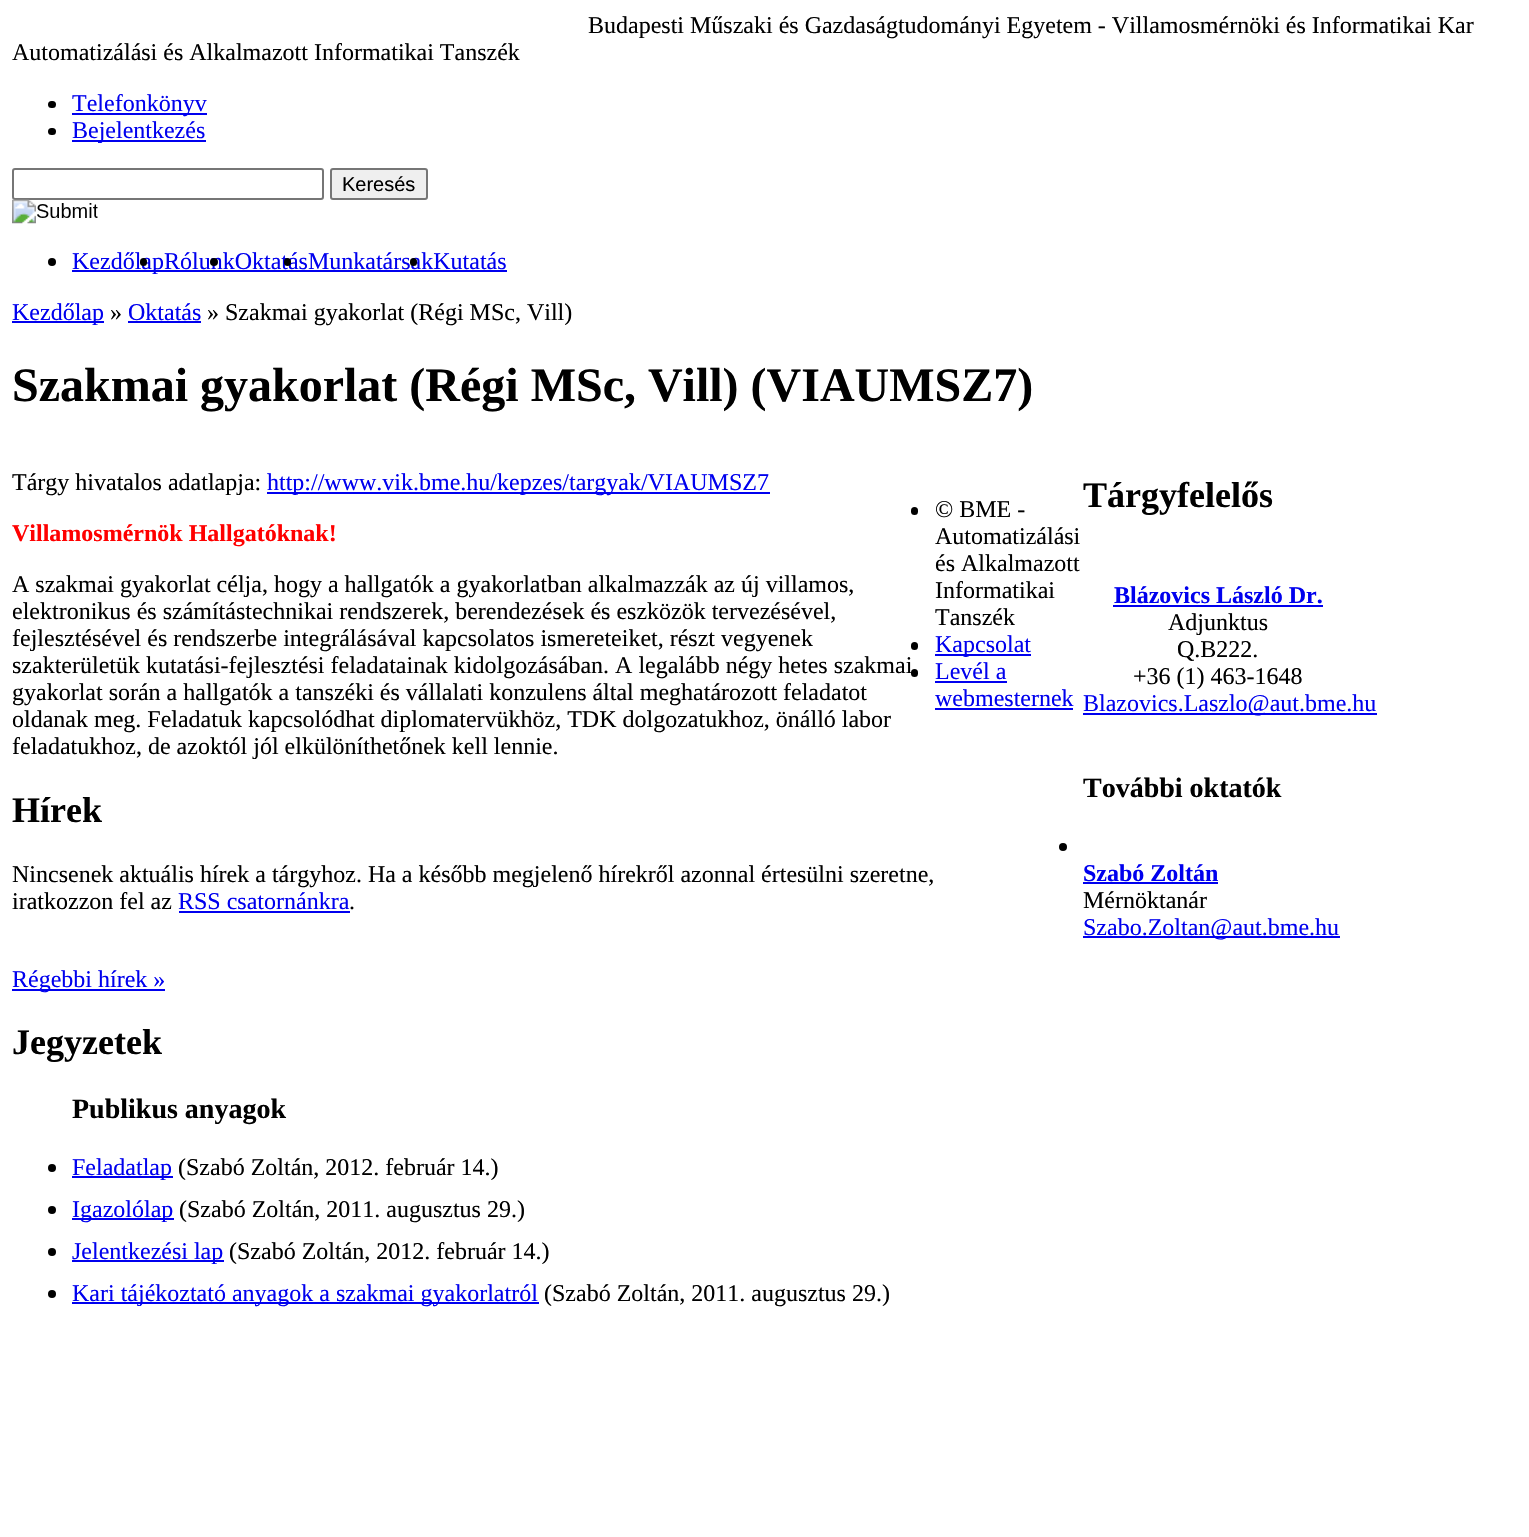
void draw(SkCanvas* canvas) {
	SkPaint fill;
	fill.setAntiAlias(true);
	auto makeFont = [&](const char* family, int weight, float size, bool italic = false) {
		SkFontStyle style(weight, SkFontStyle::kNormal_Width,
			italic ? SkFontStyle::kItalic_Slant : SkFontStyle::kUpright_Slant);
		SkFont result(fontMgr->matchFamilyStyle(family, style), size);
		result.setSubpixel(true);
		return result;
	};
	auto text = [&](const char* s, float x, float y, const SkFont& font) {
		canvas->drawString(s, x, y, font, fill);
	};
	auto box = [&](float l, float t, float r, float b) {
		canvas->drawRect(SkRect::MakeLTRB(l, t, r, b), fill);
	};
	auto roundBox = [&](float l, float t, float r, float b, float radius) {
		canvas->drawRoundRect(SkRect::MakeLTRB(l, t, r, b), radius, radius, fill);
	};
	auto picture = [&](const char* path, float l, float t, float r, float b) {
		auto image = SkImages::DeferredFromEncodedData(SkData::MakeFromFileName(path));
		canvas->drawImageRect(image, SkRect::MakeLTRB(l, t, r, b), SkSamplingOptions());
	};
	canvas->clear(0xFFFFFFFF);
	fill.setColor(0xFF000000);
	roundBox(48, 101, 56, 108, 3.5f);
	fill.setColor(0xFF0000EE);
	box(72, 113, 207, 115);
	fill.setColor(0xFF000000);
	roundBox(48, 128, 56, 135, 3.5f);
	fill.setColor(0xFF0000EE);
	box(72, 140, 206, 142);
	fill.setStyle(SkPaint::kStroke_Style);
	fill.setStrokeWidth(2);
	fill.setColor(0xFF767676);
	canvas->drawRoundRect(SkRect::MakeLTRB(13, 169, 323, 199), 2, 2, fill);
	fill.setStyle(SkPaint::kFill_Style);
	fill.setColor(0xFFEFEFEF);
	canvas->drawRoundRect(SkRect::MakeLTRB(331, 169, 427, 199), 2, 2, fill);
	fill.setStyle(SkPaint::kStroke_Style);
	fill.setColor(0xFF767676);
	canvas->drawRoundRect(SkRect::MakeLTRB(331, 169, 427, 199), 2, 2, fill);
	picture("image0.png", 12, 199, 98, 224);
	fill.setStyle(SkPaint::kFill_Style);
	fill.setColor(0xFF000000);
	canvas->drawCircle(52, 262, 4, fill);
	fill.setColor(0xFF0000EE);
	box(72, 270, 234, 272);
	box(234, 270, 507, 272);
	box(12, 321, 104, 323);
	box(128, 321, 201, 323);
	box(267, 492, 770, 494);
	box(179, 911, 350, 913);
	box(12, 989, 165, 991);
	fill.setColor(0xFF000000);
	canvas->drawCircle(52, 1168, 4, fill);
	fill.setColor(0xFF0000EE);
	box(72, 1176, 173, 1178);
	fill.setColor(0xFF000000);
	canvas->drawCircle(52, 1210, 4, fill);
	fill.setColor(0xFF0000EE);
	box(72, 1218, 174, 1220);
	fill.setColor(0xFF000000);
	canvas->drawCircle(52, 1252, 4, fill);
	fill.setColor(0xFF0000EE);
	box(72, 1260, 224, 1262);
	fill.setColor(0xFF000000);
	canvas->drawCircle(52, 1294, 4, fill);
	fill.setColor(0xFF0000EE);
	box(72, 1302, 539, 1304);
	box(1113, 605, 1323, 607);
	box(1083, 713, 1377, 715);
	fill.setColor(0xFF000000);
	canvas->drawCircle(1063, 847, 4, fill);
	fill.setColor(0xFF0000EE);
	box(1083, 882, 1218, 884);
	box(1083, 936, 1340, 938);
	fill.setColor(0xFF000000);
	roundBox(911, 507, 918, 515, 3.5f);
	roundBox(911, 642, 918, 650, 3.5f);
	fill.setColor(0xFF0000EE);
	box(935, 654, 1031, 656);
	fill.setColor(0xFF000000);
	roundBox(911, 669, 918, 677, 3.5f);
	fill.setColor(0xFF0000EE);
	box(935, 681, 1007, 683);
	box(935, 708, 1073, 710);
	auto font1 = makeFont("Liberation Serif", 400, 24);
	fill.setColor(0xFF000000);
	text("Budapesti Műszaki és Gazdaságtudományi Egyetem - Villamosmérnöki és Informatikai Kar", 588, 33, font1);
	text("Automatizálási és Alkalmazott Informatikai Tanszék", 12, 60, font1);
	fill.setColor(0xFF0000EE);
	text("Telefonkönyv", 72, 111, font1);
	text("Bejelentkezés", 72, 138, font1);
	auto font2 = makeFont("Liberation Sans", 400, 20);
	fill.setColor(0xFF000000);
	text("Keresés", 342, 191, font2);
	fill.setColor(0xFF0000EE);
	text("KezdőlapRólunkOktatásMunkatársakKutatás", 72, 269, font1);
	fill.setColor(0xFF000000);
	roundBox(140, 258, 147, 266, 3.5f);
	canvas->drawCircle(214, 262, 4, fill);
	roundBox(284, 258, 291, 266, 3.5f);
	roundBox(410, 258, 417, 266, 3.5f);
	fill.setColor(0xFF0000EE);
	text("Kezdőlap", 12, 320, font1);
	fill.setColor(0xFF000000);
	text("»", 110, 320, font1);
	fill.setColor(0xFF0000EE);
	text("Oktatás", 128, 320, font1);
	fill.setColor(0xFF000000);
	text("» Szakmai gyakorlat (Régi MSc, Vill)", 207, 320, font1);
	auto font3 = makeFont("Liberation Serif", 700, 48);
	text("Szakmai gyakorlat (Régi MSc, Vill) (VIAUMSZ7)", 12, 401, font3);
	text("Tárgy hivatalos adatlapja:", 12, 490, font1);
	fill.setColor(0xFF0000EE);
	text("http://www.vik.bme.hu/kepzes/targyak/VIAUMSZ7", 267, 490, font1);
	auto font4 = makeFont("Liberation Serif", 700, 24);
	fill.setColor(0xFFFF0000);
	text("Villamosmérnök Hallgatóknak!", 12, 541, font4);
	fill.setColor(0xFF000000);
	text("A szakmai gyakorlat célja, hogy a hallgatók a gyakorlatban alkalmazzák az új villamos,", 12, 592, font1);
	text("elektronikus és számítástechnikai rendszerek, berendezések és eszközök tervezésével,", 12, 619, font1);
	text("fejlesztésével és rendszerbe integrálásával kapcsolatos ismereteiket, részt vegyenek", 12, 646, font1);
	text("szakterületük kutatási-fejlesztési feladatainak kidolgozásában. A legalább négy hetes szakmai", 12, 673, font1);
	text("gyakorlat során a hallgatók a tanszéki és vállalati konzulens által meghatározott feladatot", 12, 700, font1);
	text("oldanak meg. Feladatuk kapcsolódhat diplomatervükhöz, TDK dolgozatukhoz, önálló labor", 12, 727, font1);
	text("feladatukhoz, de azoktól jól elkülöníthetőnek kell lennie.", 12, 754, font1);
	auto font5 = makeFont("Liberation Serif", 700, 36);
	text("Hírek", 12, 822, font5);
	text("Nincsenek aktuális hírek a tárgyhoz. Ha a később megjelenő hírekről azonnal értesülni szeretne,", 12, 882, font1);
	text("iratkozzon fel az", 12, 909, font1);
	fill.setColor(0xFF0000EE);
	text("RSS csatornánkra", 178, 909, font1);
	fill.setColor(0xFF000000);
	text(".", 349, 909, font1);
	fill.setColor(0xFF0000EE);
	text("Régebbi hírek »", 12, 987, font1);
	fill.setColor(0xFF000000);
	text("Jegyzetek", 12, 1054, font5);
	auto font6 = makeFont("Liberation Serif", 700, 28);
	text("Publikus anyagok", 72, 1118, font6);
	fill.setColor(0xFF0000EE);
	text("Feladatlap", 72, 1175, font1);
	fill.setColor(0xFF000000);
	text("(Szabó Zoltán, 2012. február 14.)", 178, 1175, font1);
	fill.setColor(0xFF0000EE);
	text("Igazolólap", 72, 1217, font1);
	fill.setColor(0xFF000000);
	text("(Szabó Zoltán, 2011. augusztus 29.)", 179, 1217, font1);
	fill.setColor(0xFF0000EE);
	text("Jelentkezési lap", 72, 1259, font1);
	fill.setColor(0xFF000000);
	text("(Szabó Zoltán, 2012. február 14.)", 229, 1259, font1);
	fill.setColor(0xFF0000EE);
	text("Kari tájékoztató anyagok a szakmai gyakorlatról", 72, 1301, font1);
	fill.setColor(0xFF000000);
	text("(Szabó Zoltán, 2011. augusztus 29.)", 544, 1301, font1);
	text("Tárgyfelelős", 1083, 507, font5);
	fill.setColor(0xFF0000EE);
	text("Blázovics László Dr.", 1114, 603, font4);
	fill.setColor(0xFF000000);
	text("Adjunktus", 1168, 630, font1);
	text("Q.B222.", 1177, 657, font1);
	text("+36 (1) 463-1648", 1133, 684, font1);
	fill.setColor(0xFF0000EE);
	text("Blazovics.Laszlo@aut.bme.hu", 1083, 711, font1);
	fill.setColor(0xFF000000);
	text("További oktatók", 1083, 797, font6);
	fill.setColor(0xFF0000EE);
	text("Szabó Zoltán", 1083, 881, font4);
	fill.setColor(0xFF000000);
	text("Mérnöktanár", 1083, 908, font1);
	fill.setColor(0xFF0000EE);
	text("Szabo.Zoltan@aut.bme.hu", 1083, 935, font1);
	fill.setColor(0xFF000000);
	text("© BME -", 935, 517, font1);
	text("Automatizálási", 935, 544, font1);
	text("és Alkalmazott", 935, 571, font1);
	text("Informatikai", 935, 598, font1);
	text("Tanszék", 935, 625, font1);
	fill.setColor(0xFF0000EE);
	text("Kapcsolat", 935, 652, font1);
	text("Levél a", 935, 679, font1);
	text("webmesternek", 935, 706, font1);
}
